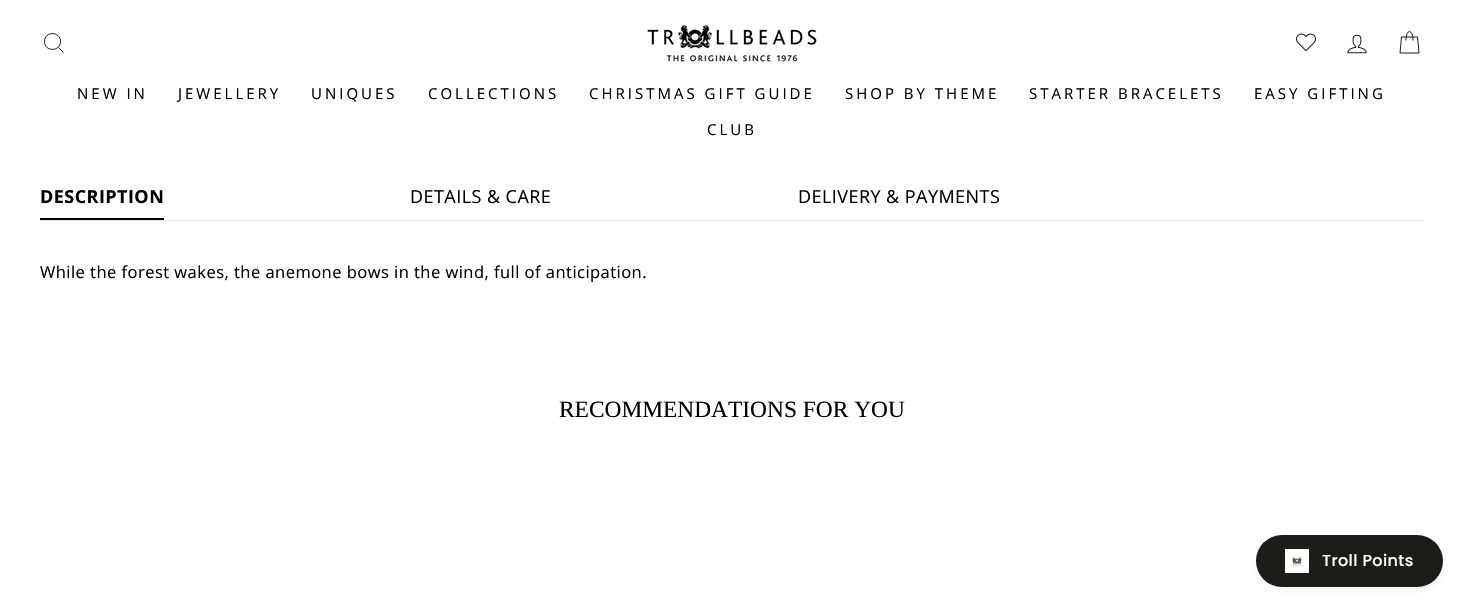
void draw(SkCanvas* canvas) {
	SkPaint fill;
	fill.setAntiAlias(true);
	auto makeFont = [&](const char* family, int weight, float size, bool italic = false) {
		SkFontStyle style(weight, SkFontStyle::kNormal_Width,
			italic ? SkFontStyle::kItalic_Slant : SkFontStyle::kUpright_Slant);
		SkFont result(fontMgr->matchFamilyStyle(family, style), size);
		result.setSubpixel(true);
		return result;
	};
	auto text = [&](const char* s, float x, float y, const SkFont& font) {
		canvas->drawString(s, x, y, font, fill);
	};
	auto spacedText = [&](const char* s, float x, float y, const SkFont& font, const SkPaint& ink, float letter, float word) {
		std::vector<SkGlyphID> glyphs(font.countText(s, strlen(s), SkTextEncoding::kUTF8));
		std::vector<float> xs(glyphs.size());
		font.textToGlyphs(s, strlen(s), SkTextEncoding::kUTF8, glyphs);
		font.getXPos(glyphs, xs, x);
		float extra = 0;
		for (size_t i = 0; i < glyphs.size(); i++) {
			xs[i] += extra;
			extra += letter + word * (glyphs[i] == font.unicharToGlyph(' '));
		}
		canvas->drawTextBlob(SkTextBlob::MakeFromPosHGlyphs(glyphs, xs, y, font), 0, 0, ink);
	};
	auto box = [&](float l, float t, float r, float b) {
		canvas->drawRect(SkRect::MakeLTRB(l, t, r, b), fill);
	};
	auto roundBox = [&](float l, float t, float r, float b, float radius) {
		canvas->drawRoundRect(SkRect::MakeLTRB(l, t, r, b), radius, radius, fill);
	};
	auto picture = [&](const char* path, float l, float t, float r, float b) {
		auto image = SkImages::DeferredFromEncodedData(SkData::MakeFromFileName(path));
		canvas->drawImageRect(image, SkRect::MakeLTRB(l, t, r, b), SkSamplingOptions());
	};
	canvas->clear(0xFFFFFFFF);
	fill.setStyle(SkPaint::kStroke_Style);
	fill.setStrokeWidth(0.9f);
	fill.setColor(0xFF000000);
	canvas->drawPath(SkPathBuilder().moveTo(60.5f, 41.5f).cubicTo(60.5f, 52, 44.5f, 52, 44.5f, 41.5f).cubicTo(44.5f, 31, 60.5f, 31, 60.5f, 41.5f).close().moveTo(63.5f, 52.5f).lineTo(58.5f, 47.5f).detach(), fill);
	picture("image0.png", 647, 25, 817, 62);
	picture("image1.png", 1296, 33, 1316, 51);
	picture("image2.png", 1347, 34, 1367, 54);
	canvas->drawPath(SkPathBuilder().moveTo(1406, 40.5f).cubicTo(1406, 28.5f, 1413, 28.5f, 1413, 40.5f).moveTo(1401.5f, 37).lineTo(1417.5f, 37).lineTo(1419, 53).lineTo(1400, 53).close().detach(), fill);
	fill.setStyle(SkPaint::kFill_Style);
	box(40, 218, 164, 220);
	fill.setColor(0xFFE9E9E9);
	box(40, 220, 1423, 221);
	fill.setColor(0x14444444);
	fill.setMaskFilter(SkMaskFilter::MakeBlur(kNormal_SkBlurStyle, 4));
	canvas->drawRoundRect(SkRect::MakeLTRB(1258, 541, 1441, 589), 24, 24, fill);
	fill.setMaskFilter(nullptr);
	fill.setColor(0xFF1B1D19);
	roundBox(1256, 535, 1443, 587, 26);
	picture("image3.png", 1285, 549, 1309, 573);
	auto font1 = makeFont("Open Sans", 400, 15);
	fill.setColor(0xFF000000);
	spacedText("NEW IN", 77, 99, font1, fill, 3, 0);
	spacedText("JEWELLERY", 178, 99, font1, fill, 3, 0);
	spacedText("UNIQUES", 311, 99, font1, fill, 3, 0);
	spacedText("COLLECTIONS", 428, 99, font1, fill, 3, 0);
	spacedText("CHRISTMAS GIFT GUIDE", 589, 99, font1, fill, 3, 0);
	spacedText("SHOP BY THEME", 845, 99, font1, fill, 3, 0);
	spacedText("STARTER BRACELETS", 1029, 99, font1, fill, 3, 0);
	spacedText("EASY GIFTING", 1254, 99, font1, fill, 3, 0);
	spacedText("CLUB", 707, 135, font1, fill, 3, 0);
	auto font2 = makeFont("Open Sans", 700, 18);
	spacedText("DESCRIPTION", 40, 203, font2, fill, 0.45f, 0);
	auto font3 = makeFont("Open Sans", 400, 18);
	spacedText("DETAILS & CARE", 410, 203, font3, fill, 0.45f, 0);
	spacedText("DELIVERY & PAYMENTS", 798, 203, font3, fill, 0.45f, 0);
	auto font4 = makeFont("Open Sans", 400, 16.55f);
	spacedText("While the forest wakes, the anemone bows in the wind, full of anticipation.", 40, 278, font4, fill, 0.45f, 0);
	auto font5 = makeFont("Liberation Serif", 400, 23.4f);
	text("RECOMMENDATIONS FOR YOU", 559, 417, font5);
	auto font6 = makeFont("Poppins", 500, 16);
	fill.setColor(0xFFFFFFFF);
	spacedText("Troll Points", 1322, 566, font6, fill, 0.4f, 0);
}
